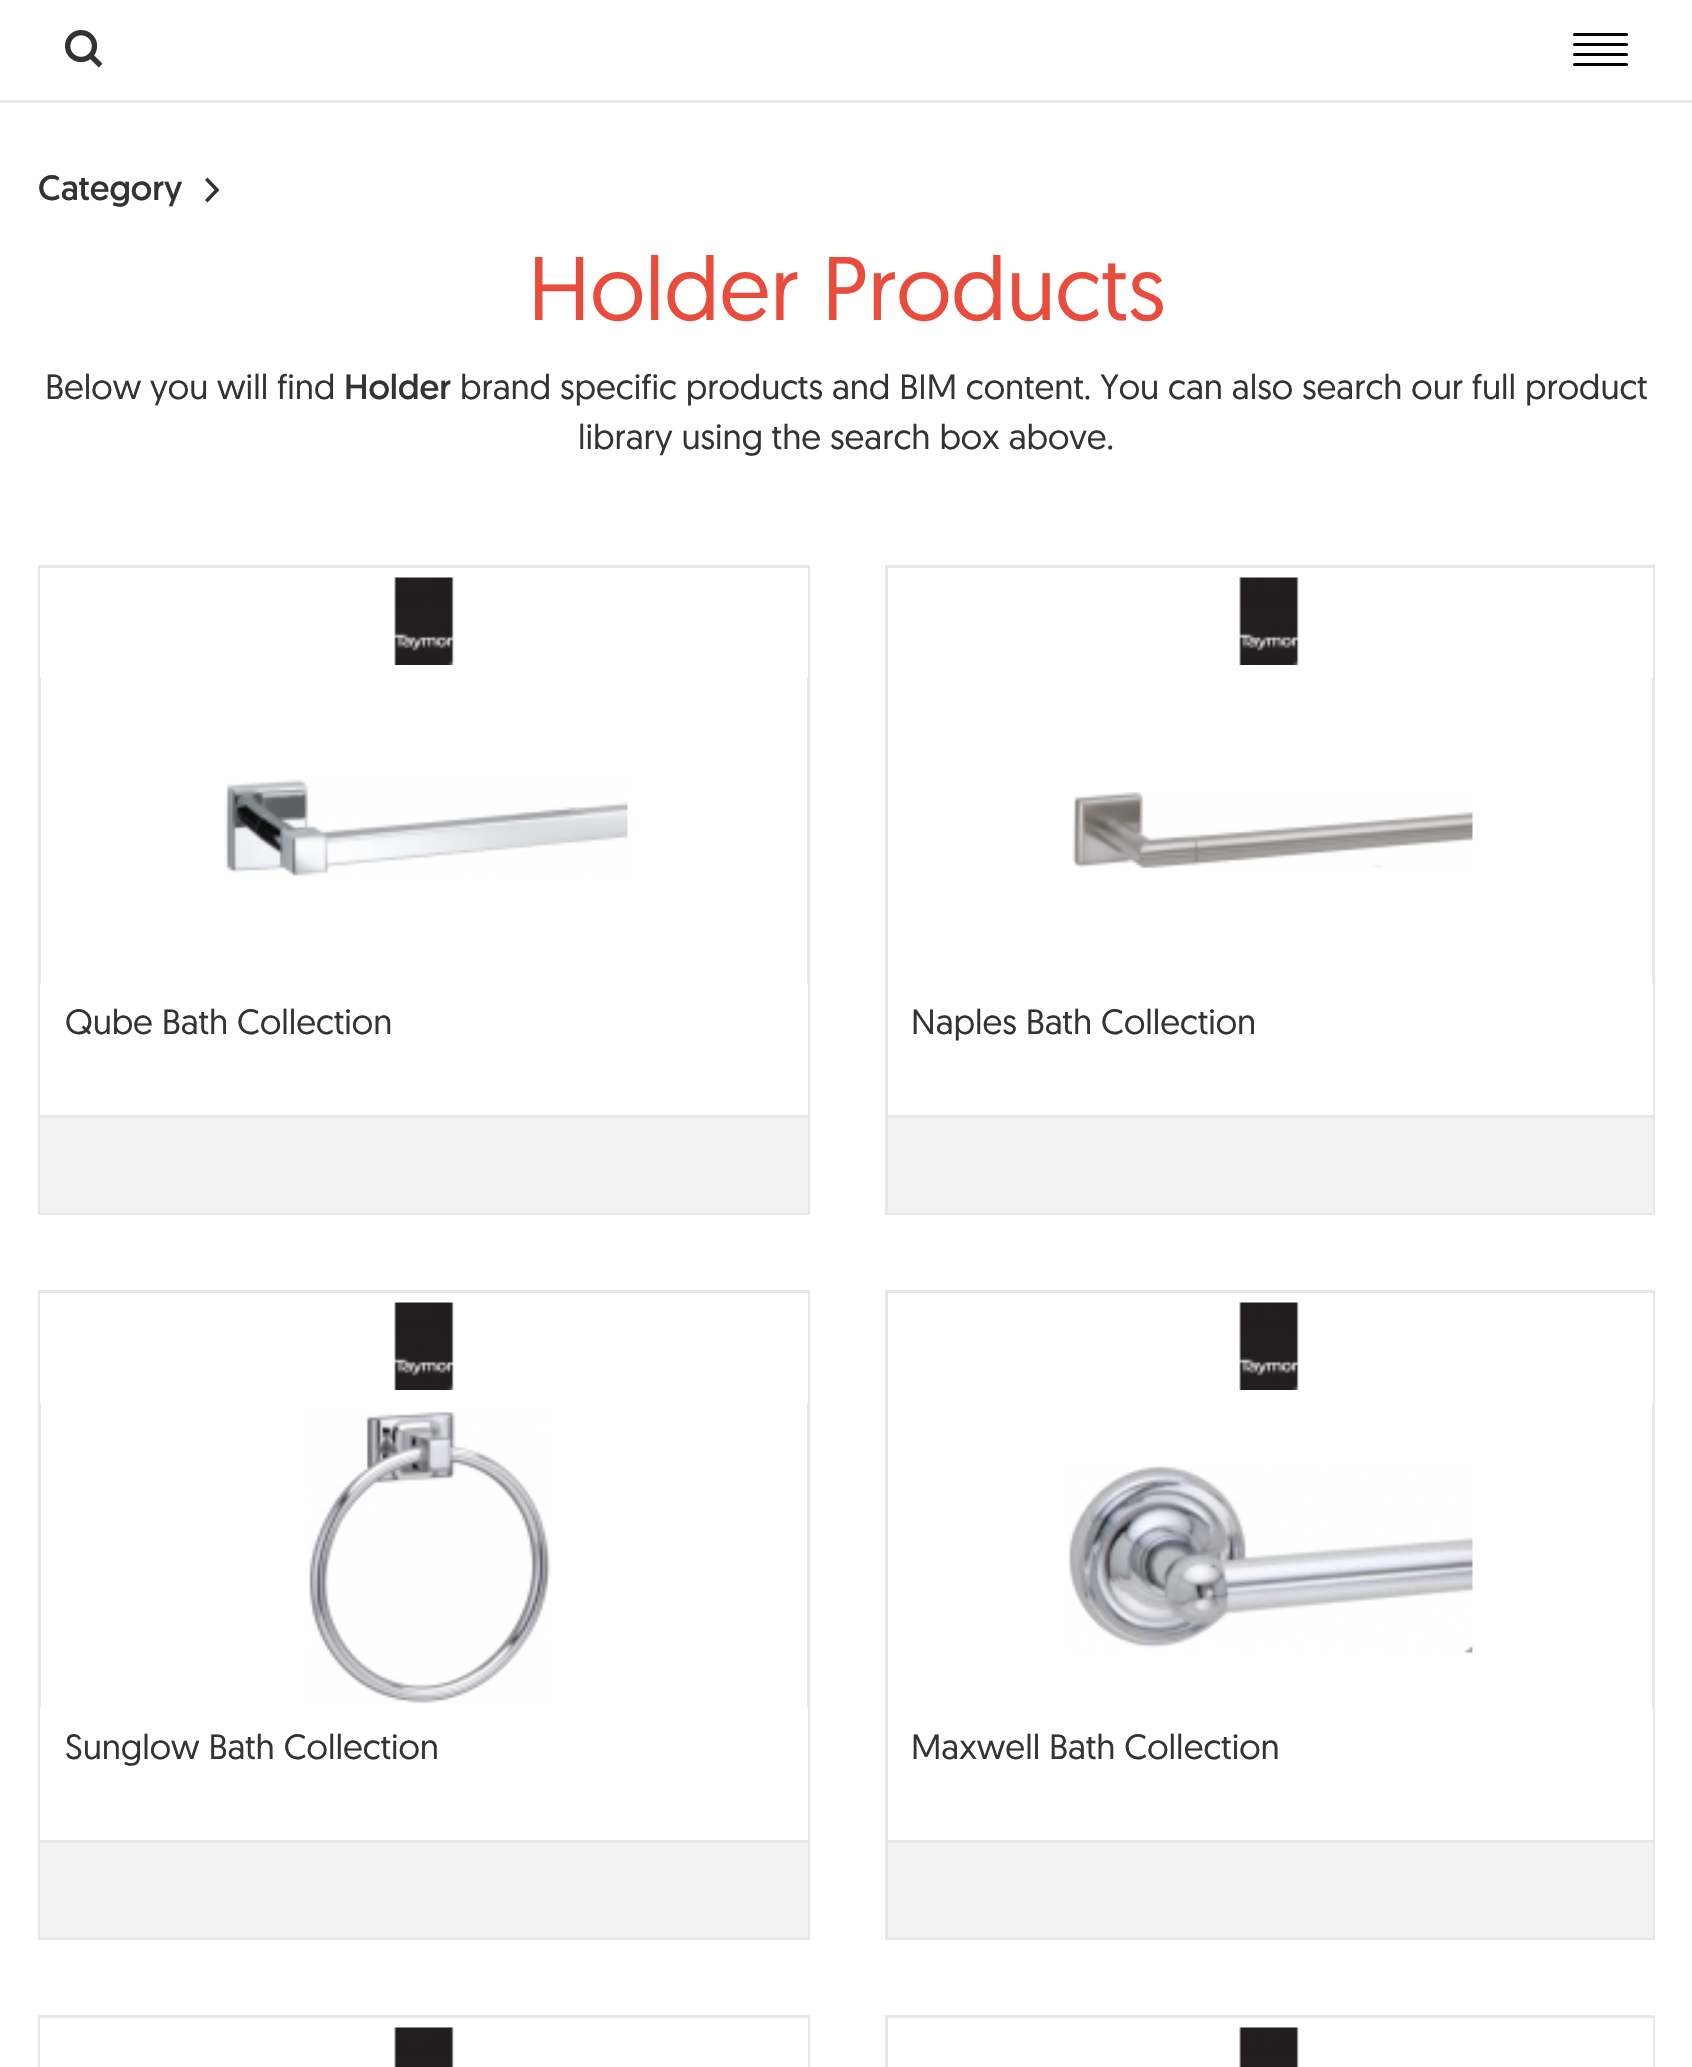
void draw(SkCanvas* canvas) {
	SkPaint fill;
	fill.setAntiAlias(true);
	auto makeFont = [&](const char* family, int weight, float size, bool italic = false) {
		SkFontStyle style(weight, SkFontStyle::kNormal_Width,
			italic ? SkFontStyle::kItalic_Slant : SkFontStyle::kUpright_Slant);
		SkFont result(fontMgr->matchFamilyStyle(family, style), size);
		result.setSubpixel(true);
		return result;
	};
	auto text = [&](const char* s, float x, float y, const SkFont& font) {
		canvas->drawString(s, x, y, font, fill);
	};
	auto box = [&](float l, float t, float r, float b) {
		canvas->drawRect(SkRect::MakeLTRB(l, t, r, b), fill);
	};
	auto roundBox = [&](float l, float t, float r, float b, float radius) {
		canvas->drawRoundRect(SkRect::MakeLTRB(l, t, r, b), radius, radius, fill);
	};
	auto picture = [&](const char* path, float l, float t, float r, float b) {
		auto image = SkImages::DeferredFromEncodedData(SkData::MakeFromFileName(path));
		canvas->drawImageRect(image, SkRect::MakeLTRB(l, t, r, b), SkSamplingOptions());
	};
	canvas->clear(0xFFFFFFFF);
	fill.setColor(0xFFE7E7E7);
	box(0, 100, 1692, 103);
	picture("image0.png", 65, 30, 103, 68);
	fill.setColor(0xFF000000);
	roundBox(1573, 33, 1628, 36, 1.5f);
	roundBox(1573, 43, 1628, 46, 1.5f);
	roundBox(1573, 53, 1628, 56, 1.5f);
	roundBox(1573, 63, 1628, 66, 1.5f);
	fill.setColor(0xFF333333);
	canvas->drawPath(SkPathBuilder().moveTo(219.5f, 190).lineTo(207.5f, 202.5f).lineTo(205, 200).lineTo(214.5f, 190).lineTo(205, 180).lineTo(207.5f, 177.5f).close().detach(), fill);
	fill.setStyle(SkPaint::kStroke_Style);
	fill.setStrokeWidth(3);
	fill.setColor(0xFFE7E7E7);
	canvas->drawRect(SkRect::MakeLTRB(39.5f, 566.5f, 808.5f, 1213.5f), fill);
	fill.setStyle(SkPaint::kFill_Style);
	fill.setColor(0xFFFFFFFF);
	box(40, 568, 808, 678);
	picture("image1.png", 394, 577, 454, 665);
	picture("image2.png", 224, 779, 628, 876);
	box(40, 983, 808, 1115);
	fill.setColor(0xFFF2F2F2);
	box(40, 1118, 808, 1213);
	fill.setColor(0xFFE7E7E7);
	box(40, 1115, 808, 1118);
	fill.setStyle(SkPaint::kStroke_Style);
	canvas->drawRect(SkRect::MakeLTRB(886.5f, 566.5f, 1653.5f, 1213.5f), fill);
	fill.setStyle(SkPaint::kFill_Style);
	fill.setColor(0xFFFFFFFF);
	box(1652, 568, 1653, 678);
	picture("image3.png", 1239, 577, 1299, 665);
	picture("image4.png", 1072, 792, 1473, 869);
	box(1652, 983, 1653, 1115);
	fill.setColor(0xFFF2F2F2);
	box(888, 1118, 1653, 1213);
	fill.setColor(0xFFE7E7E7);
	box(888, 1115, 1653, 1118);
	fill.setStyle(SkPaint::kStroke_Style);
	canvas->drawRect(SkRect::MakeLTRB(39.5f, 1291.5f, 808.5f, 1938.5f), fill);
	fill.setStyle(SkPaint::kFill_Style);
	fill.setColor(0xFFFFFFFF);
	box(40, 1293, 808, 1403);
	picture("image5.png", 394, 1302, 454, 1390);
	picture("image6.png", 309, 1411, 551, 1704);
	box(40, 1708, 808, 1840);
	fill.setColor(0xFFF2F2F2);
	box(40, 1843, 808, 1938);
	fill.setColor(0xFFE7E7E7);
	box(40, 1840, 808, 1843);
	fill.setStyle(SkPaint::kStroke_Style);
	canvas->drawRect(SkRect::MakeLTRB(886.5f, 1291.5f, 1653.5f, 1938.5f), fill);
	fill.setStyle(SkPaint::kFill_Style);
	fill.setColor(0xFFFFFFFF);
	box(1652, 1293, 1653, 1403);
	picture("image7.png", 1239, 1302, 1299, 1390);
	picture("image8.png", 1067, 1465, 1473, 1654);
	box(1652, 1708, 1653, 1840);
	fill.setColor(0xFFF2F2F2);
	box(888, 1843, 1653, 1938);
	fill.setColor(0xFFE7E7E7);
	box(888, 1840, 1653, 1843);
	fill.setStyle(SkPaint::kStroke_Style);
	canvas->drawRect(SkRect::MakeLTRB(39.5f, 2016.5f, 808.5f, 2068.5f), fill);
	fill.setStyle(SkPaint::kFill_Style);
	fill.setColor(0xFFFFFFFF);
	box(40, 2018, 808, 2067);
	picture("image9.png", 394, 2027, 454, 2067);
	fill.setStyle(SkPaint::kStroke_Style);
	fill.setColor(0xFFE7E7E7);
	canvas->drawRect(SkRect::MakeLTRB(886.5f, 2016.5f, 1653.5f, 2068.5f), fill);
	fill.setStyle(SkPaint::kFill_Style);
	fill.setColor(0xFFFFFFFF);
	box(1652, 2018, 1653, 2067);
	picture("image10.png", 1239, 2027, 1299, 2067);
	auto font1 = makeFont("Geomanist", 400, 35);
	fill.setColor(0xFF333333);
	text("Category", 38, 200, font1);
	auto font2 = makeFont("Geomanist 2", 400, 90);
	fill.setColor(0xFFE74C3C);
	text("Holder Products", 528, 320, font2);
	auto font3 = makeFont("Geomanist 2", 400, 35);
	fill.setColor(0xFF333333);
	text("Below you will find", 45, 399, font3);
	text("Holder", 344, 399, font1);
	text("brand specific products and BIM content. You can also search our full product", 460, 399, font3);
	text("library using the search box above.", 578, 449, font3);
	text("Qube Bath Collection", 65, 1034, font3);
	text("Naples Bath Collection", 911, 1034, font3);
	text("Sunglow Bath Collection", 65, 1759, font3);
	text("Maxwell Bath Collection", 911, 1759, font3);
}
